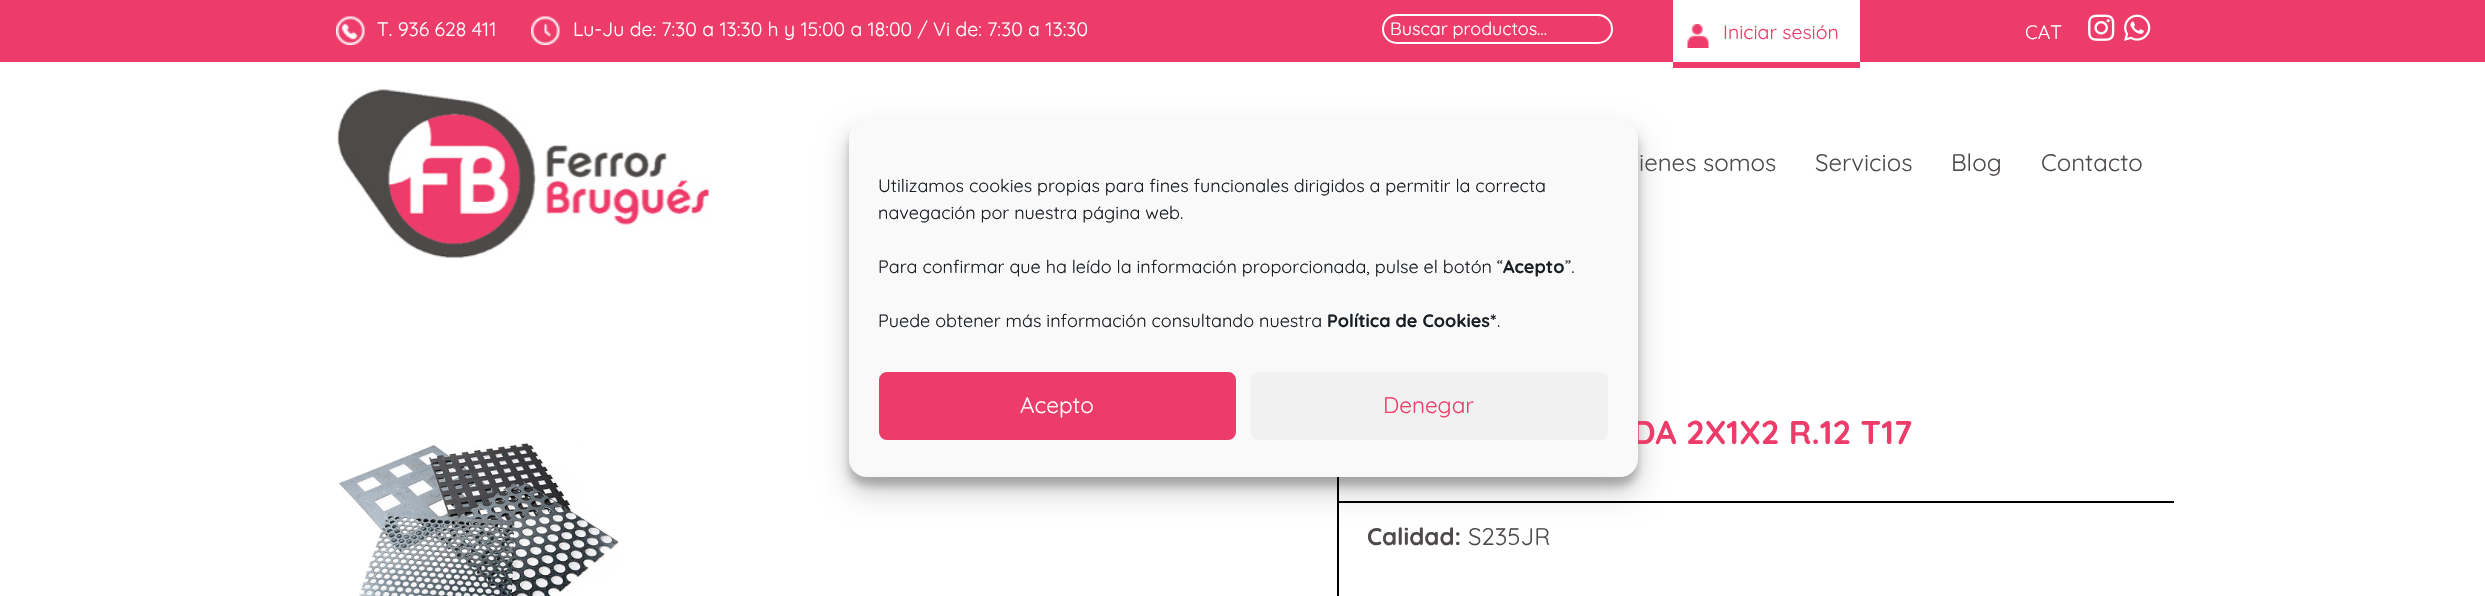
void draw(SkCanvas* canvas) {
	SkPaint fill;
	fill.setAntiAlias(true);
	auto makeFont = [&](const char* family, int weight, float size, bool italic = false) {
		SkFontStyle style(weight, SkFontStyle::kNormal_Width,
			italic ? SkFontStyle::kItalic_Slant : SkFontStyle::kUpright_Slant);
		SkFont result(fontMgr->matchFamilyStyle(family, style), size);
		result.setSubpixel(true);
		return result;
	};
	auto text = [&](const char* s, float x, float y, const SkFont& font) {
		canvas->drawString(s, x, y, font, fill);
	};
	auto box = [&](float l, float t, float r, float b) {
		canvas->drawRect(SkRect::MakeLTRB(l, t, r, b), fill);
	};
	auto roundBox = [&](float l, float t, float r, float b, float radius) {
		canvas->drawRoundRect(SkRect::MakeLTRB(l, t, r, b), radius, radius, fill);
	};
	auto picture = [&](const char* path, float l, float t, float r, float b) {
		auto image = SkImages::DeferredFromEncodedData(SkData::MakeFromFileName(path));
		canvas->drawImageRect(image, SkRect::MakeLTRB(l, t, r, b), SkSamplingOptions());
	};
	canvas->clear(0xFFFFFFFF);
	fill.setColor(0xFFED3C6A);
	box(0, 0, 2485, 62);
	picture("image0.png", 336, 16, 365, 45);
	picture("image1.png", 531, 16, 560, 45);
	fill.setStyle(SkPaint::kStroke_Style);
	fill.setStrokeWidth(2);
	fill.setColor(0xFFFFFFFF);
	canvas->drawRoundRect(SkRect::MakeLTRB(1383, 15, 1612, 43), 14, 14, fill);
	fill.setStyle(SkPaint::kFill_Style);
	box(1673, 0, 1860, 62);
	picture("image2.png", 1687, 24, 1709, 48);
	fill.setColor(0xFFED3C6A);
	box(1673, 62, 1860, 68);
	picture("image3.png", 2088, 14, 2115, 41);
	picture("image4.png", 2124, 14, 2151, 41);
	picture("image5.png", 337, 89, 710, 258);
	picture("image6.png", 339, 443, 619, 596);
	fill.setColor(0xFF000000);
	box(1337, 477, 1339, 596);
	box(1338, 501, 2174, 503);
	fill.setColor(0x3B000000);
	fill.setMaskFilter(SkMaskFilter::MakeBlur(kNormal_SkBlurStyle, 4.5f));
	canvas->drawRoundRect(SkRect::MakeLTRB(849, 129, 1638, 486), 18, 18, fill);
	fill.setMaskFilter(nullptr);
	fill.setColor(0x30000000);
	fill.setMaskFilter(SkMaskFilter::MakeBlur(kNormal_SkBlurStyle, 15));
	canvas->drawRoundRect(SkRect::MakeLTRB(849, 135, 1638, 492), 18, 18, fill);
	fill.setMaskFilter(nullptr);
	auto font1 = makeFont("Quicksand", 400, 19.5f);
	fill.setColor(0xFFFFFFFF);
	text("T. 936 628 411", 377, 36, font1);
	text("Lu-Ju de: 7:30 a 13:30 h y 15:00 a 18:00 / Vi de: 7:30 a 13:30", 573, 36, font1);
	auto font2 = makeFont("Quicksand", 400, 18);
	text("Buscar productos…", 1390, 35, font2);
	fill.setColor(0xFFED3C6A);
	text("Iniciar sesión", 1723, 39, font1);
	fill.setColor(0xFFFFFFFF);
	text("CAT", 2025, 39, font1);
	auto font3 = makeFont("Quicksand", 400, 24);
	fill.setColor(0xFF4E4A49);
	text("ienes somos", 1639, 171, font3);
	text("Servicios", 1815, 171, font3);
	text("Blog", 1951, 171, font3);
	text("Contacto", 2041, 171, font3);
	auto font4 = makeFont("Quicksand", 700, 33);
	fill.setColor(0xFFED3C6A);
	text("DA 2X1X2 R.12 T17", 1632, 444, font4);
	auto font5 = makeFont("Quicksand", 700, 24);
	fill.setColor(0xFF4E4A49);
	text("Calidad:", 1367, 545, font5);
	text("S235JR", 1468, 545, font3);
	fill.setColor(0xFFF9F9F9);
	roundBox(849, 120, 1638, 477, 18);
	fill.setColor(0xFF191E23);
	text("Utilizamos cookies propias para fines funcionales dirigidos a permitir la correcta", 878, 192, font2);
	text("navegación por nuestra página web.", 878, 219, font2);
	text("Para confirmar que ha leído la información proporcionada, pulse el botón “", 878, 273, font2);
	auto font6 = makeFont("Quicksand", 700, 18);
	text("Acepto", 1503, 273, font6);
	text("”.", 1565, 273, font2);
	text("Puede obtener más información consultando nuestra", 878, 327, font2);
	text("Política de Cookies*", 1327, 327, font6);
	text(".", 1497, 327, font2);
	fill.setColor(0xFFED3C6A);
	canvas->drawRoundRect(SkRect::MakeLTRB(880, 373, 1235, 439), 7, 7, fill);
	fill.setStyle(SkPaint::kStroke_Style);
	canvas->drawRoundRect(SkRect::MakeLTRB(880, 373, 1235, 439), 7, 7, fill);
	auto font7 = makeFont("Quicksand", 400, 22.5f);
	fill.setStyle(SkPaint::kFill_Style);
	fill.setColor(0xFFFFFFFF);
	text("Acepto", 1020, 413, font7);
	fill.setColor(0xFFF1F1F1);
	roundBox(1251, 372, 1608, 440, 8);
	fill.setColor(0xFFED3C6A);
	text("Denegar", 1383, 413, font7);
}
